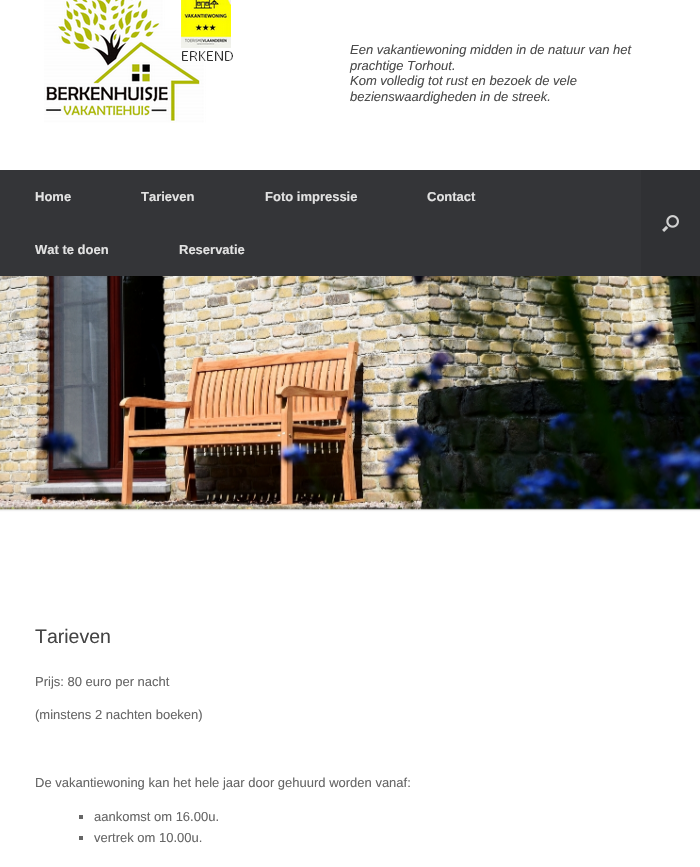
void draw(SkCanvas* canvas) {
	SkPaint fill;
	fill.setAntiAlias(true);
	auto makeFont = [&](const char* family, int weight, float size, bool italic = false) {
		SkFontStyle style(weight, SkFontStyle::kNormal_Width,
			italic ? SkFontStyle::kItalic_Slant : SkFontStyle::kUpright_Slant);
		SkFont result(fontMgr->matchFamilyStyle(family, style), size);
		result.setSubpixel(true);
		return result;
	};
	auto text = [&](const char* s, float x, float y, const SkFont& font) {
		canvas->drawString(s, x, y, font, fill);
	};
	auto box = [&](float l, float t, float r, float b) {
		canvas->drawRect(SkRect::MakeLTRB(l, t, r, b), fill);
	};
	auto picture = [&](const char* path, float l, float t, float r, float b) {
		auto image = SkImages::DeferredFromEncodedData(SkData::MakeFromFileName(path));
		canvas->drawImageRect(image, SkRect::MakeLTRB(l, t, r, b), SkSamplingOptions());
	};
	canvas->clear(0xFFFFFFFF);
	picture("image0.png", 44, 0, 233, 123);
	fill.setColor(0x2E000000);
	fill.setMaskFilter(SkMaskFilter::MakeBlur(kNormal_SkBlurStyle, 1));
	canvas->drawRoundRect(SkRect::MakeLTRB(-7, 256, 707, 510), 4, 4, fill);
	fill.setMaskFilter(nullptr);
	fill.setColor(0xFF343538);
	box(0, 170, 641, 276);
	fill.setColor(0xFF303134);
	box(641, 170, 700, 276);
	picture("image1.png", 662, 215, 679, 232);
	picture("image2.png", 0, 276, 700, 510);
	fill.setColor(0xFF666666);
	box(79, 815, 83, 819);
	box(79, 836, 83, 840);
	auto font1 = makeFont("Liberation Sans", 400, 13, true);
	fill.setColor(0xFF4B4B4B);
	text("Een vakantiewoning midden in de natuur van het", 350, 54, font1);
	text("prachtige Torhout.", 350, 70, font1);
	text("Kom volledig tot rust en bezoek de vele", 350, 85, font1);
	text("bezienswaardigheden in de streek.", 350, 101, font1);
	auto font2 = makeFont("Liberation Sans", 700, 13);
	fill.setColor(0xFFE2E2E2);
	text("Home", 35, 201, font2);
	text("Tarieven", 141, 201, font2);
	text("Foto impressie", 265, 201, font2);
	text("Contact", 427, 201, font2);
	text("Wat te doen", 35, 254, font2);
	text("Reservatie", 179, 254, font2);
	auto font3 = makeFont("Liberation Sans", 400, 19.5f);
	fill.setColor(0xFF444444);
	text("Tarieven", 35, 643, font3);
	auto font4 = makeFont("Liberation Sans", 400, 13);
	fill.setColor(0xFF666666);
	text("Prijs: 80 euro per nacht", 35, 686, font4);
	text("(minstens 2 nachten boeken)", 35, 719, font4);
	text("De vakantiewoning kan het hele jaar door gehuurd worden vanaf:", 35, 787, font4);
	text("aankomst om 16.00u.", 94, 821, font4);
	text("vertrek om 10.00u.", 94, 842, font4);
}
